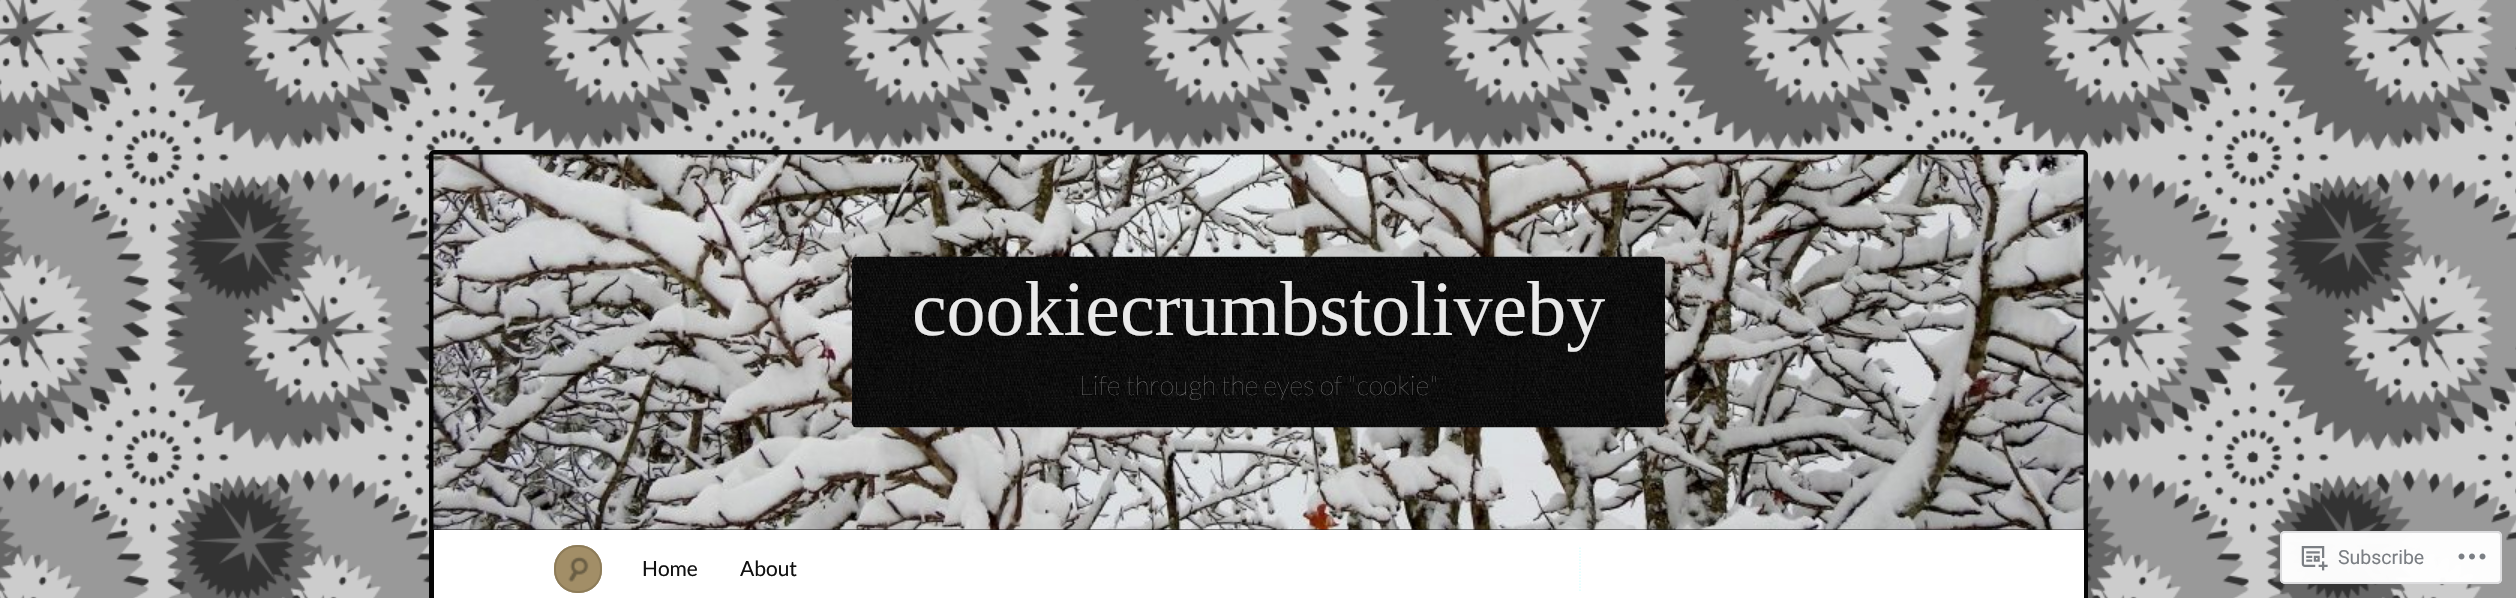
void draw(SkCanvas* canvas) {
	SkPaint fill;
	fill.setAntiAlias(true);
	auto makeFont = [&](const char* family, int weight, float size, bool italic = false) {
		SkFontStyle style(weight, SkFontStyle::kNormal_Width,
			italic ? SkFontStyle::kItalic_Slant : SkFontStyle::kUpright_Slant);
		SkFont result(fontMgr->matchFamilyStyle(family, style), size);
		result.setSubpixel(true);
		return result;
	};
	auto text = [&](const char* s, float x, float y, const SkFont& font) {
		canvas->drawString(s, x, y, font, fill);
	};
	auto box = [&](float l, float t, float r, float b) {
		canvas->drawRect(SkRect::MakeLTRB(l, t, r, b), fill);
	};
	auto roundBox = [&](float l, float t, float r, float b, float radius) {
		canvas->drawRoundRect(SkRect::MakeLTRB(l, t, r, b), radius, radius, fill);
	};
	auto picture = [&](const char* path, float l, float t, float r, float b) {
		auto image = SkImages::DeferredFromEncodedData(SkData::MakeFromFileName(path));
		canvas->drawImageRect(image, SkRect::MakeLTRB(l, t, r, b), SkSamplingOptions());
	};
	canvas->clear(0xFFFFFFFF);
	picture("image0.png", 0, 0, 2516, 598);
	fill.setStyle(SkPaint::kStroke_Style);
	fill.setStrokeWidth(5);
	fill.setColor(0xFF050505);
	canvas->drawRoundRect(SkRect::MakeLTRB(431.5f, 152.5f, 2085.5f, 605.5f), 2.5f, 2.5f, fill);
	fill.setStyle(SkPaint::kFill_Style);
	fill.setColor(0xFF181818);
	box(434, 155, 2084, 530);
	picture("image1.png", 433, 154, 2084, 530);
	picture("image2.png", 852, 256, 1665, 428);
	fill.setColor(0xFFFFFFFF);
	box(434, 530, 2084, 598);
	fill.setColor(0xFFA28E67);
	roundBox(554, 545, 602, 593, 23);
	picture("image3.png", 568, 556, 589, 582);
	fill.setStyle(SkPaint::kStroke_Style);
	fill.setStrokeWidth(2);
	fill.setColor(0xFF8D7C59);
	canvas->drawRoundRect(SkRect::MakeLTRB(555, 546, 601, 592), 22, 22, fill);
	fill.setStrokeWidth(1.5f);
	fill.setColor(0xFFDDFFFF);
	fill.setPathEffect(SkDashPathEffect::Make({{1.5f, 1.5f}}, 0));
	canvas->drawPath(SkPathBuilder().moveTo(1580, 547.5f).lineTo(1580, 592.5f).detach(), fill);
	fill.setPathEffect(nullptr);
	fill.setStyle(SkPaint::kFill_Style);
	fill.setColor(0xFAFFFFFF);
	roundBox(2280, 531, 2502, 584, 5);
	fill.setStyle(SkPaint::kStroke_Style);
	fill.setStrokeWidth(2);
	fill.setColor(0xFADCDCDE);
	canvas->drawRoundRect(SkRect::MakeLTRB(2281, 532, 2501, 583), 4, 4, fill);
	picture("image4.png", 2301, 546, 2328, 571);
	picture("image5.png", 2458, 553, 2486, 560);
	auto font1 = makeFont("Liberation Serif", 400, 78);
	fill.setStyle(SkPaint::kFill_Style);
	fill.setColor(0xFFE9E9E9);
	text("cookiecrumbstoliveby", 912, 335, font1);
	auto font2 = makeFont("Lato", 100, 27);
	fill.setColor(0xFF8F8F8F);
	text("Life through the eyes of \"cookie\"", 1079, 395, font2);
	auto font3 = makeFont("Lato", 400, 21);
	fill.setColor(0xFF111111);
	text("Home", 642, 576, font3);
	text("About", 740, 576, font3);
	auto font4 = makeFont("Roboto", 400, 19.5f);
	fill.setColor(0xFF7B7F84);
	text("Subscribe", 2338, 564, font4);
}
